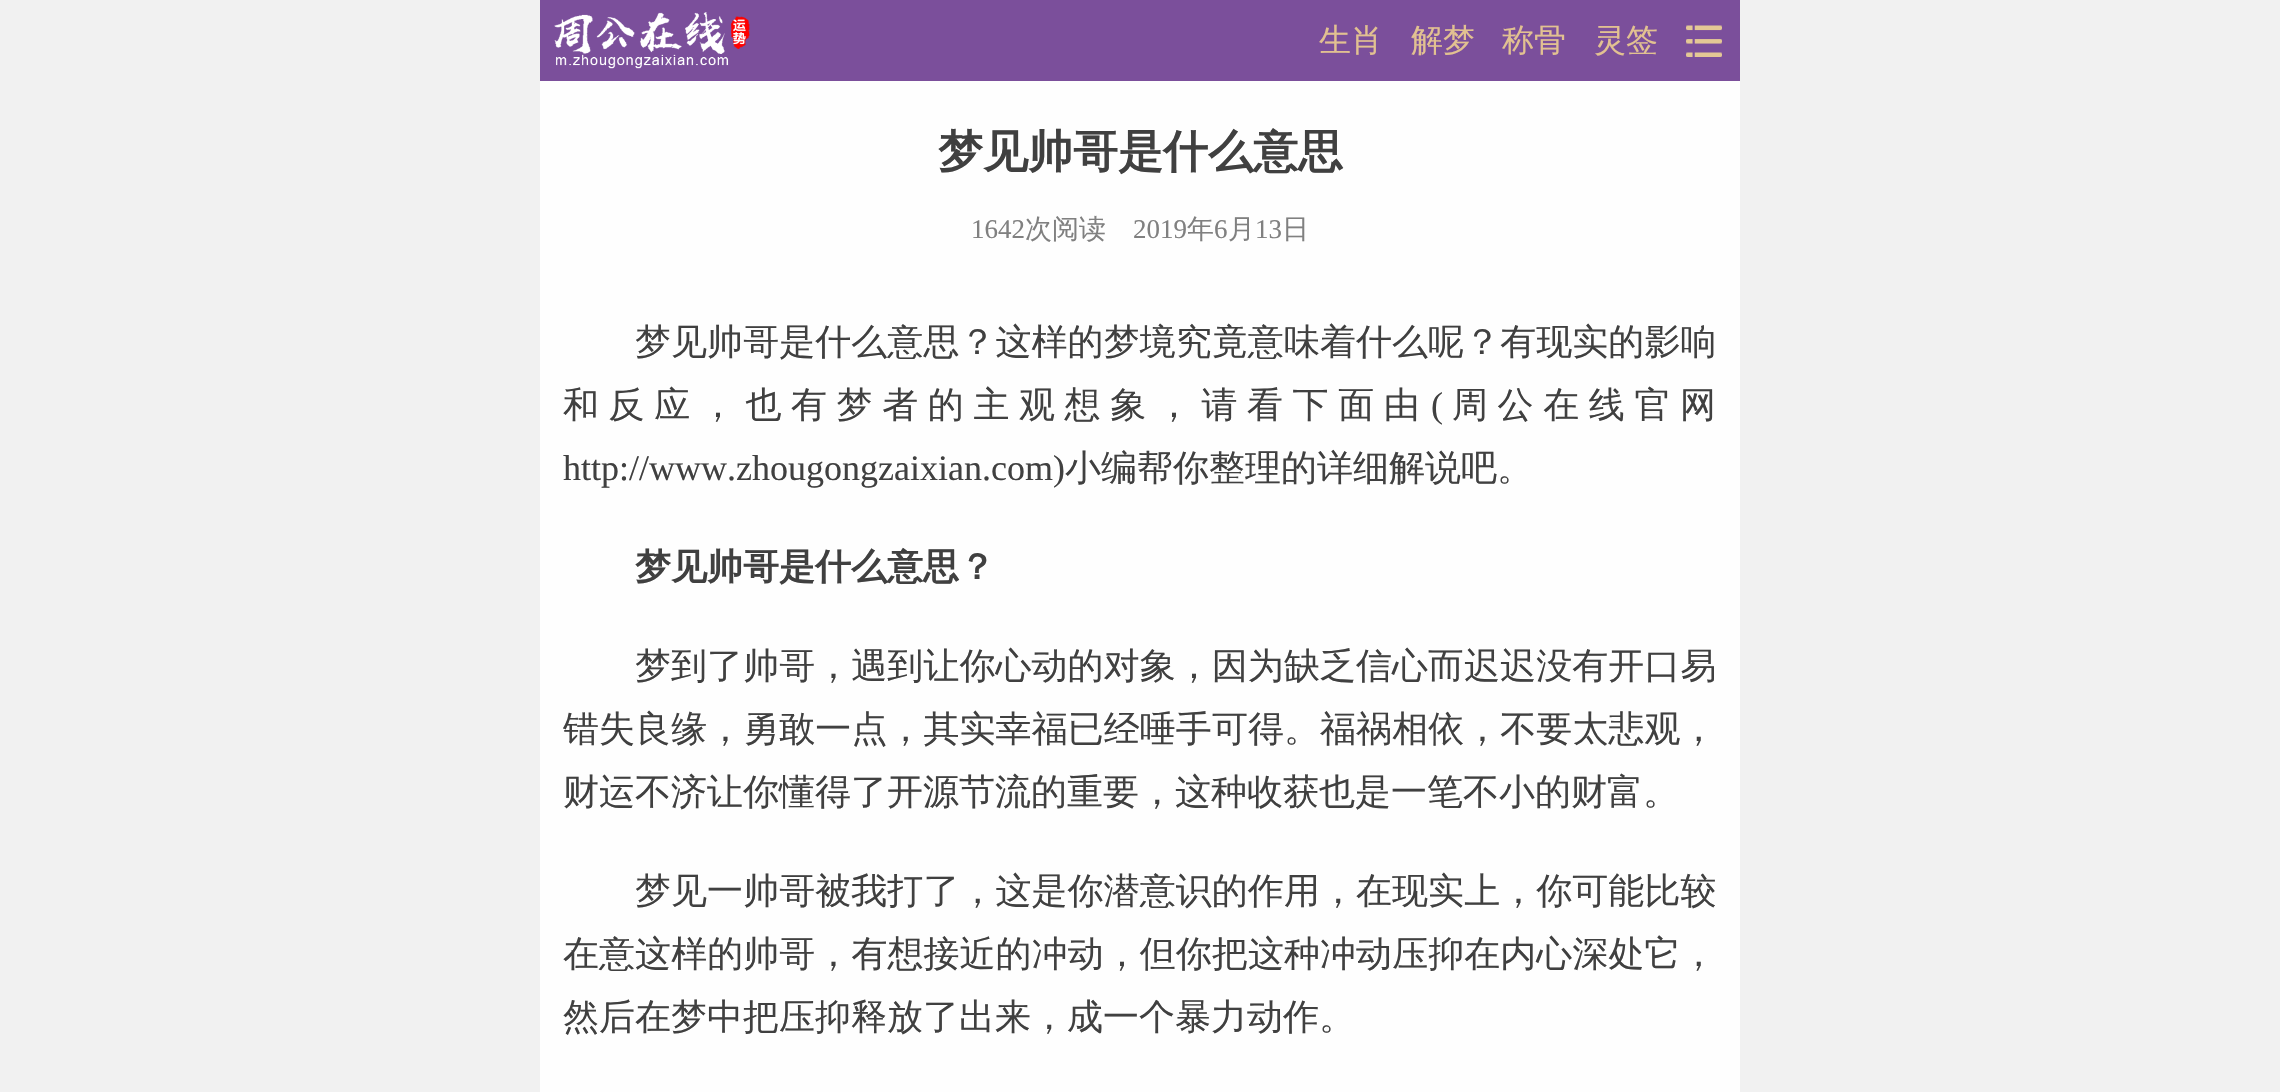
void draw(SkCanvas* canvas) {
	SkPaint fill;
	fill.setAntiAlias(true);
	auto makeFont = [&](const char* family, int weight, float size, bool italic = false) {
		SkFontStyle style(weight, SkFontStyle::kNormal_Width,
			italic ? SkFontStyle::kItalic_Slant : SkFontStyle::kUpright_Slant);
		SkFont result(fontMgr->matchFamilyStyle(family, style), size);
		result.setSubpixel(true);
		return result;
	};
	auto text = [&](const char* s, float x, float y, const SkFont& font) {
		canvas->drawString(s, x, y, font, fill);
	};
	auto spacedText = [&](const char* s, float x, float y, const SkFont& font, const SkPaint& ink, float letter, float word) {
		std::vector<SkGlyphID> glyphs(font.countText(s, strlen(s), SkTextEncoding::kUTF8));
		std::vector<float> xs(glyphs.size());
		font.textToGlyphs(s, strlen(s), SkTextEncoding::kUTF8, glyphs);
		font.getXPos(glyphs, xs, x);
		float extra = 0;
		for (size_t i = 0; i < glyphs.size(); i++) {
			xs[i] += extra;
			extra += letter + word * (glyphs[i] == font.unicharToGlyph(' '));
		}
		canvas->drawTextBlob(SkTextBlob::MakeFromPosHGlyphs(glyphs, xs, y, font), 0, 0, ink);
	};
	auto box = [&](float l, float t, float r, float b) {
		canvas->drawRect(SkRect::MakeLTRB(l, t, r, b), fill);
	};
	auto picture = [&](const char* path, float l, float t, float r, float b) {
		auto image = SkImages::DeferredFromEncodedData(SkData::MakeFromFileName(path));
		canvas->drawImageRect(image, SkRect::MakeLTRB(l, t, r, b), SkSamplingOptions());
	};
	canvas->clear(0xFFF1F1F1);
	fill.setColor(0xFF7B4F9B);
	box(540, 0, 1740, 81);
	picture("image0.png", 554, 12, 750, 69);
	picture("image1.png", 1686, 25, 1722, 57);
	fill.setColor(0xFFFEFEFE);
	box(540, 81, 1740, 1092);
	auto font1 = makeFont("WenQuanYi Zen Hei", 500, 32);
	fill.setColor(0xFFE2C191);
	text("生肖", 1319, 51, font1);
	text("解梦", 1411, 51, font1);
	text("称骨", 1502, 51, font1);
	text("灵签", 1594, 51, font1);
	auto font2 = makeFont("WenQuanYi Zen Hei", 700, 45);
	fill.setColor(0xFF404040);
	text("梦见帅哥是什么意思", 938, 167, font2);
	auto font3 = makeFont("Liberation Serif", 400, 27);
	fill.setColor(0xFF808080);
	text("1642", 971, 238, font3);
	auto font4 = makeFont("WenQuanYi Zen Hei", 500, 27);
	text("次阅读", 1025, 238, font4);
	text("2019", 1133, 238, font3);
	text("年", 1187, 238, font4);
	text("6", 1214, 238, font3);
	text("月", 1228, 238, font4);
	text("13", 1255, 238, font3);
	text("日", 1282, 238, font4);
	auto font5 = makeFont("WenQuanYi Zen Hei", 500, 36);
	fill.setColor(0xFF404040);
	spacedText("梦见帅哥是什么意思？这样的梦境究竟意味着什么呢？有现实的影响", 635, 354, font5, fill, 0.05f, 0);
	spacedText("和反应，也有梦者的主观想象，请看下面由", 563, 417, font5, fill, 9.6f, 0);
	auto font6 = makeFont("Liberation Serif", 400, 36);
	spacedText("(", 1431, 417, font6, fill, 9.6f, 0);
	spacedText("周公在线官网", 1452, 417, font5, fill, 9.6f, 0);
	text("http://www.zhougongzaixian.com)", 563, 480, font6);
	text("小编帮你整理的详细解说吧。", 1065, 480, font5);
	auto font7 = makeFont("WenQuanYi Zen Hei", 700, 36);
	text("梦见帅哥是什么意思？", 635, 579, font7);
	spacedText("梦到了帅哥，遇到让你心动的对象，因为缺乏信心而迟迟没有开口易", 635, 678, font5, fill, 0.05f, 0);
	spacedText("错失良缘，勇敢一点，其实幸福已经唾手可得。福祸相依，不要太悲观，", 563, 741, font5, fill, 0.05f, 0);
	text("财运不济让你懂得了开源节流的重要，这种收获也是一笔不小的财富。", 563, 804, font5);
	spacedText("梦见一帅哥被我打了，这是你潜意识的作用，在现实上，你可能比较", 635, 903, font5, fill, 0.05f, 0);
	spacedText("在意这样的帅哥，有想接近的冲动，但你把这种冲动压抑在内心深处它，", 563, 966, font5, fill, 0.05f, 0);
	text("然后在梦中把压抑释放了出来，成一个暴力动作。", 563, 1029, font5);
}
